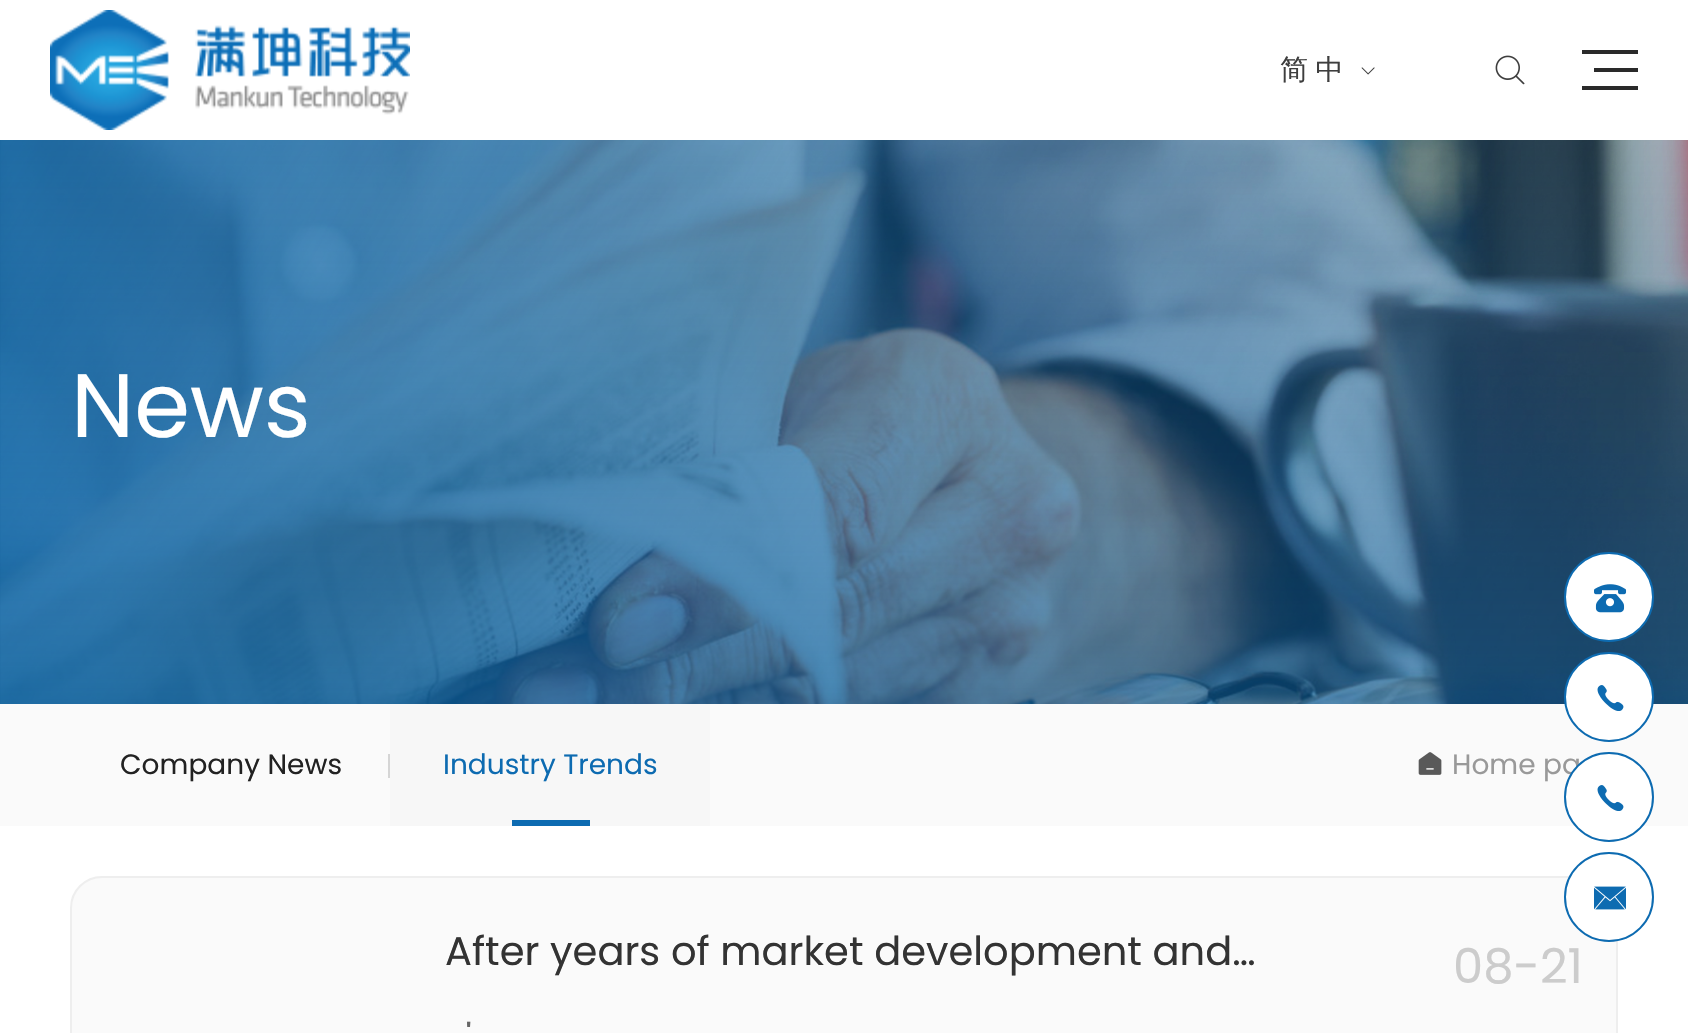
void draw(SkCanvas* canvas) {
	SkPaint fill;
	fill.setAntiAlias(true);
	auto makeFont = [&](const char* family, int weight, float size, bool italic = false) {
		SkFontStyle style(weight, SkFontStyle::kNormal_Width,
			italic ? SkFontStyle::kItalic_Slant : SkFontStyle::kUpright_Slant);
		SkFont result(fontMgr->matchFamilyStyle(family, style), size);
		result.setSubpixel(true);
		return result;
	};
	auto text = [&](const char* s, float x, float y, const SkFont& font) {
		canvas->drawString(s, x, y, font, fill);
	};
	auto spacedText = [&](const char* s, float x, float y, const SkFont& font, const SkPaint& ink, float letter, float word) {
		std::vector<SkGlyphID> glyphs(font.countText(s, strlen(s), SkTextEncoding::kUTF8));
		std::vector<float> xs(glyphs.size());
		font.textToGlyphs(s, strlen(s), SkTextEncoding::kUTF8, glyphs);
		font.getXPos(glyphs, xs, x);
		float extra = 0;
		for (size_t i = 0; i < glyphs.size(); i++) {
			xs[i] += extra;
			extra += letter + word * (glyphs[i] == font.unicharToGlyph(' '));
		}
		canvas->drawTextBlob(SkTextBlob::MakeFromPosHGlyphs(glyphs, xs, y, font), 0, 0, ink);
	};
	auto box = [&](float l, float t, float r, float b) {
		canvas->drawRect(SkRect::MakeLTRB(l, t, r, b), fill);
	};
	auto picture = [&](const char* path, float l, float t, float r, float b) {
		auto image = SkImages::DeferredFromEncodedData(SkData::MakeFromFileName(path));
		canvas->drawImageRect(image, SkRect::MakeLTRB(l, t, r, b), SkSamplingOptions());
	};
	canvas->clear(0xFFFFFFFF);
	picture("image0.png", 50, 10, 410, 130);
	picture("image1.png", 1361, 67, 1375, 75);
	picture("image2.png", 1495, 55, 1525, 85);
	fill.setColor(0xFF2A2A2A);
	box(1582, 50, 1638, 54);
	box(1594, 68, 1638, 72);
	box(1582, 86, 1638, 90);
	picture("image3.png", 0, 140, 1688, 704);
	fill.setColor(0xFFFAFAFA);
	box(0, 704, 1688, 826);
	fill.setColor(0xFFD5D5D5);
	box(388, 754, 390, 778);
	fill.setColor(0xFFF7F7F7);
	box(390, 704, 710, 826);
	fill.setColor(0xFF0D6BB1);
	box(512, 820, 590, 826);
	picture("image4.png", 1418, 752, 1442, 775);
	fill.setColor(0xFFFAFAFA);
	canvas->drawRoundRect(SkRect::MakeLTRB(71, 877, 1617, 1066), 31, 31, fill);
	fill.setStyle(SkPaint::kStroke_Style);
	fill.setStrokeWidth(2);
	fill.setColor(0xFFEEEEEE);
	canvas->drawRoundRect(SkRect::MakeLTRB(71, 877, 1617, 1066), 31, 31, fill);
	fill.setStyle(SkPaint::kFill_Style);
	fill.setColor(0xFFFFFFFF);
	canvas->drawCircle(1609, 597, 44, fill);
	fill.setStyle(SkPaint::kStroke_Style);
	fill.setColor(0xFF0D6BB1);
	canvas->drawCircle(1609, 597, 44, fill);
	picture("image5.png", 1594, 584, 1627, 613);
	fill.setStyle(SkPaint::kFill_Style);
	fill.setColor(0xFFFFFFFF);
	canvas->drawCircle(1609, 697, 44, fill);
	fill.setStyle(SkPaint::kStroke_Style);
	fill.setColor(0xFF0D6BB1);
	canvas->drawCircle(1609, 697, 44, fill);
	picture("image6.png", 1597, 685, 1624, 711);
	fill.setStyle(SkPaint::kFill_Style);
	fill.setColor(0xFFFFFFFF);
	canvas->drawCircle(1609, 897, 44, fill);
	fill.setStyle(SkPaint::kStroke_Style);
	fill.setColor(0xFF0D6BB1);
	canvas->drawCircle(1609, 897, 44, fill);
	picture("image7.png", 1594, 886, 1626, 910);
	auto font1 = makeFont("WenQuanYi Zen Hei", 500, 28);
	fill.setStyle(SkPaint::kFill_Style);
	fill.setColor(0xFF3E3E3E);
	spacedText("简 中", 1280, 79, font1, fill, 0, -1);
	auto font2 = makeFont("Poppins", 400, 90);
	fill.setColor(0xFFFFFFFF);
	text("News", 71, 437, font2);
	auto font3 = makeFont("Poppins", 400, 28);
	fill.setColor(0xFF222222);
	text("Company News", 120, 774, font3);
	fill.setColor(0xFF0D6BB1);
	text("Industry Trends", 443, 774, font3);
	fill.setColor(0xFF999999);
	text("Home pa", 1452, 774, font3);
	auto font4 = makeFont("Poppins", 400, 40);
	fill.setColor(0xFF333333);
	text("After years of market development and…", 445, 965, font4);
	auto font5 = makeFont("Poppins", 700, 24);
	fill.setColor(0xFF666666);
	text("'", 466, 1041, font5);
	auto font6 = makeFont("Poppins", 400, 48);
	fill.setColor(0xFFCCCCCC);
	text("08-21", 1453, 983, font6);
	fill.setColor(0xFFFFFFFF);
	canvas->drawCircle(1609, 797, 44, fill);
	fill.setStyle(SkPaint::kStroke_Style);
	fill.setColor(0xFF0D6BB1);
	canvas->drawCircle(1609, 797, 44, fill);
	picture("image6.png", 1597, 785, 1624, 811);
}
